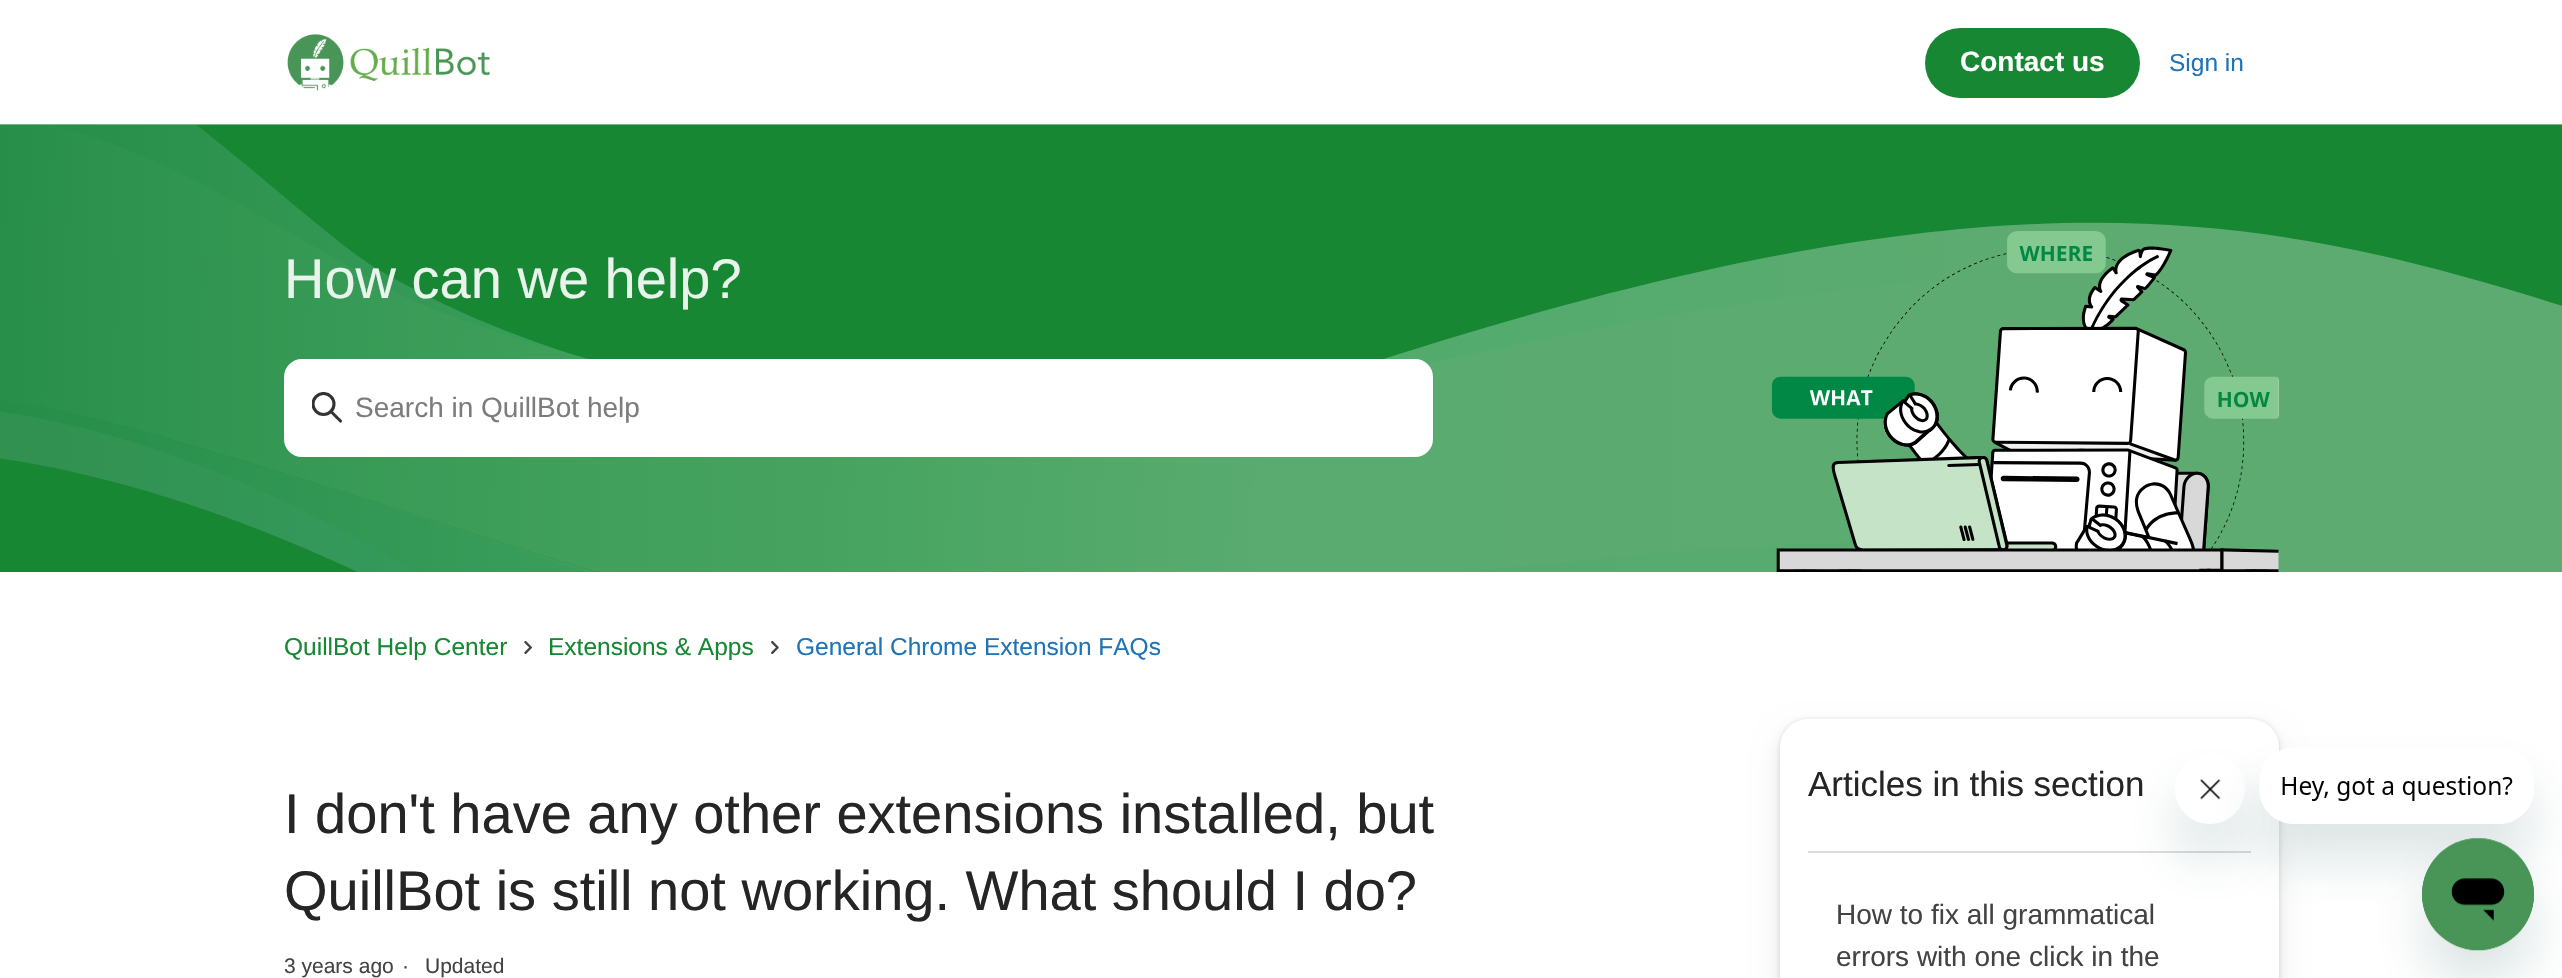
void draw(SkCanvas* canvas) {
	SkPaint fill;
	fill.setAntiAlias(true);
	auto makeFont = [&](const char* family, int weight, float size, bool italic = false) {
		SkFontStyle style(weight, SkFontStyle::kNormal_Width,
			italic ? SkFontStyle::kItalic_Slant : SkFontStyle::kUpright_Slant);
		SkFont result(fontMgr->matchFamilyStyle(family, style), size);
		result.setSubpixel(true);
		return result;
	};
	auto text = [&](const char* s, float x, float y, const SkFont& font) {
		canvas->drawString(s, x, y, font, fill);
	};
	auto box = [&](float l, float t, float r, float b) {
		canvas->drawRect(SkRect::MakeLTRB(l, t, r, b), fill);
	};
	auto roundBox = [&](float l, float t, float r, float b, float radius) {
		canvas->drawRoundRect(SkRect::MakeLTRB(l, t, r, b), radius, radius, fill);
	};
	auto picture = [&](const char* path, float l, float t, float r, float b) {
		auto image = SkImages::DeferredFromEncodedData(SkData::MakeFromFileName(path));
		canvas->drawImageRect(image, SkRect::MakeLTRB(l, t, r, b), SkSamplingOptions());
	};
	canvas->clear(0xFFFFFFFF);
	picture("image0.png", 287, 34, 490, 91);
	fill.setColor(0xFF178733);
	roundBox(1925, 28, 2140, 98, 35);
	picture("image1.png", 0, 124, 2562, 572);
	picture("image2.png", 1771, 231, 2279, 572);
	fill.setColor(0xFFFFFFFF);
	canvas->drawRoundRect(SkRect::MakeLTRB(285, 360, 1432, 456), 17, 17, fill);
	fill.setStyle(SkPaint::kStroke_Style);
	fill.setStrokeWidth(2);
	canvas->drawRoundRect(SkRect::MakeLTRB(285, 360, 1432, 456), 17, 17, fill);
	canvas->save();
	canvas->clipRect(SkRect::MakeLTRB(312, 392, 343, 424));
	fill.setStrokeWidth(3.1f);
	fill.setColor(0xFF333333);
	canvas->drawCircle(323.5f, 404, 10.5f, fill);
	canvas->restore();
	fill.setStrokeCap(SkPaint::kRound_Cap);
	canvas->drawPath(SkPathBuilder().moveTo(340.5f, 421).lineTo(331, 411.5f).detach(), fill);
	picture("image3.png", 524, 641, 532, 654);
	picture("image4.png", 771, 641, 779, 654);
	fill.setStyle(SkPaint::kFill_Style);
	fill.setColor(0x1A000000);
	fill.setMaskFilter(SkMaskFilter::MakeBlur(kNormal_SkBlurStyle, 2));
	canvas->drawRoundRect(SkRect::MakeLTRB(1780, 719, 2279, 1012), 28, 28, fill);
	fill.setMaskFilter(nullptr);
	fill.setColor(0x0F000000);
	fill.setMaskFilter(SkMaskFilter::MakeBlur(kNormal_SkBlurStyle, 3.5f));
	canvas->drawRoundRect(SkRect::MakeLTRB(1780, 726, 2279, 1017), 28, 28, fill);
	fill.setMaskFilter(nullptr);
	fill.setColor(0x14000000);
	fill.setMaskFilter(SkMaskFilter::MakeBlur(kNormal_SkBlurStyle, 14));
	canvas->drawRoundRect(SkRect::MakeLTRB(1780, 733, 2279, 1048), 28, 28, fill);
	fill.setMaskFilter(nullptr);
	fill.setColor(0xFFFFFFFF);
	roundBox(1780, 719, 2279, 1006, 28);
	fill.setColor(0xFFDBDBDB);
	box(1808, 851, 2251, 853);
	canvas->save();
	canvas->clipPath(SkPathBuilder(SkPathFillType::kEvenOdd).moveTo(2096, 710).lineTo(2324, 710).lineTo(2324, 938).lineTo(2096, 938).close().moveTo(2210, 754).cubicTo(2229.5f, 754, 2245, 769.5f, 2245, 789).cubicTo(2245, 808.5f, 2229.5f, 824, 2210, 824).cubicTo(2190.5f, 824, 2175, 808.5f, 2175, 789).cubicTo(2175, 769.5f, 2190.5f, 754, 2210, 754).close().detach(), true);
	fill.setColor(0x2617494D);
	fill.setMaskFilter(SkMaskFilter::MakeBlur(kNormal_SkBlurStyle, 26));
	canvas->drawRoundRect(SkRect::MakeLTRB(2175, 789, 2245, 859), 35, 35, fill);
	fill.setMaskFilter(nullptr);
	canvas->restore();
	picture("image6.png", 2200, 779, 2221, 800);
	canvas->save();
	canvas->clipPath(SkPathBuilder(SkPathFillType::kEvenOdd).moveTo(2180, 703).lineTo(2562, 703).lineTo(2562, 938).lineTo(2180, 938).close().moveTo(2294, 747).lineTo(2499, 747).cubicTo(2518.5f, 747, 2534, 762.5f, 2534, 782).lineTo(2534, 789).cubicTo(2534, 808.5f, 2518.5f, 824, 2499, 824).lineTo(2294, 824).cubicTo(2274.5f, 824, 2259, 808.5f, 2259, 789).lineTo(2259, 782).cubicTo(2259, 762.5f, 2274.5f, 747, 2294, 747).close().detach(), true);
	fill.setMaskFilter(SkMaskFilter::MakeBlur(kNormal_SkBlurStyle, 26));
	canvas->drawRoundRect(SkRect::MakeLTRB(2259, 782, 2534, 859), 35, 35, fill);
	fill.setMaskFilter(nullptr);
	canvas->restore();
	picture("image5.png", 2260, 749, 2513, 824);
	fill.setMaskFilter(SkMaskFilter::MakeBlur(kNormal_SkBlurStyle, 26));
	canvas->drawRoundRect(SkRect::MakeLTRB(2422, 873, 2534, 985), 56, 56, fill);
	fill.setMaskFilter(nullptr);
	picture("image7.png", 2422, 838, 2534, 951);
	auto font1 = makeFont("Liberation Sans", 700, 28);
	fill.setColor(0xFFFFFFFF);
	text("Contact us", 1960, 71, font1);
	auto font2 = makeFont("Liberation Sans", 400, 24.5f);
	fill.setColor(0xFF1F73B7);
	text("Sign in", 2169, 71, font2);
	auto font3 = makeFont("Liberation Sans", 400, 56);
	fill.setColor(0xFFE8F3EB);
	text("How can we help?", 284, 298, font3);
	auto font4 = makeFont("Liberation Sans", 400, 28);
	fill.setColor(0xFF7C7C7C);
	text("Search in QuillBot help", 355, 417, font4);
	fill.setColor(0xFF178733);
	text("QuillBot Help Center", 284, 655, font2);
	text("Extensions & Apps", 548, 655, font2);
	fill.setColor(0xFF1F73B7);
	text("General Chrome Extension FAQs", 796, 655, font2);
	fill.setColor(0xFF252525);
	text("I don't have any other extensions installed, but", 284, 833, font3);
	text("QuillBot is still not working. What should I do?", 284, 910, font3);
	auto font5 = makeFont("Liberation Sans", 400, 21);
	fill.setColor(0xFF434343);
	text("3 years ago", 284, 973, font5);
	text("·", 402, 973, font5);
	text("Updated", 425, 973, font5);
	auto font6 = makeFont("Liberation Sans", 400, 35);
	fill.setColor(0xFF252525);
	text("Articles in this section", 1808, 796, font6);
	fill.setColor(0xFF434343);
	text("How to fix all grammatical", 1836, 924, font4);
	text("errors with one click in the", 1836, 966, font4);
}
